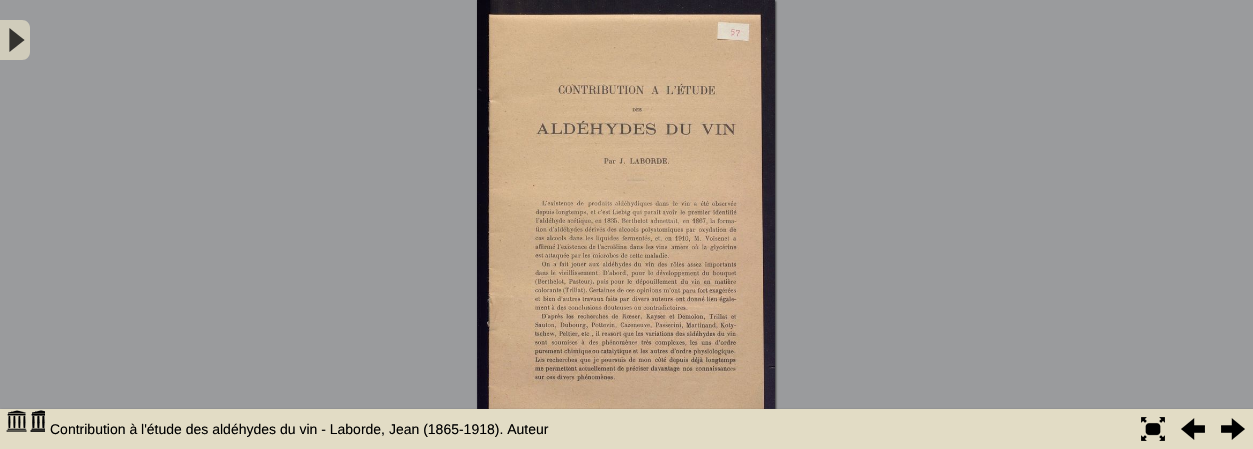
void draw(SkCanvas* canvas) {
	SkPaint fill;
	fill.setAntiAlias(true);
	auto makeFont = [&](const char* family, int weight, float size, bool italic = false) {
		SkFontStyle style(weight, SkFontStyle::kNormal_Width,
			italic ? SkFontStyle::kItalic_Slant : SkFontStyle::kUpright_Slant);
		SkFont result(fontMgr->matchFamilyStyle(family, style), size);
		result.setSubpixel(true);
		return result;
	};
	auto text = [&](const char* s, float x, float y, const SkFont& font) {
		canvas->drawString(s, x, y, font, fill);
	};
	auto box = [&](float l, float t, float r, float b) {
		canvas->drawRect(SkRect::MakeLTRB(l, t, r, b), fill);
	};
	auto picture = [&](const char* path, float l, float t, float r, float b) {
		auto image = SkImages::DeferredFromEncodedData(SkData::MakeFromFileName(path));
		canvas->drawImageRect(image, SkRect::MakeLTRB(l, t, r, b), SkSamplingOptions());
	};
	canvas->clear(0xFF9A9B9D);
	fill.setColor(0xFFD0CCBB);
	canvas->drawPath(SkPathBuilder().moveTo(0, 20).lineTo(22, 20).cubicTo(26.5f, 20, 30, 23.5f, 30, 28).lineTo(30, 52).cubicTo(30, 56.5f, 26.5f, 60, 22, 60).lineTo(0, 60).close().detach(), fill);
	picture("image0.png", 9, 28, 25, 52);
	fill.setColor(0xFF333333);
	fill.setMaskFilter(SkMaskFilter::MakeBlur(kNormal_SkBlurStyle, 1));
	canvas->drawRect(SkRect::MakeLTRB(478, 1, 776, 430), fill);
	fill.setMaskFilter(nullptr);
	picture("image5.png", 477, 0, 775, 409);
	fill.setMaskFilter(SkMaskFilter::MakeBlur(kNormal_SkBlurStyle, 1));
	canvas->drawRect(SkRect::MakeLTRB(1, 410, 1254, 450), fill);
	fill.setMaskFilter(nullptr);
	fill.setColor(0xFFE2DCC5);
	box(0, 409, 1253, 449);
	picture("image1.png", 6, 410, 45, 432);
	picture("image2.png", 1141, 417, 1165, 441);
	picture("image3.png", 1181, 418, 1205, 440);
	picture("image4.png", 1221, 418, 1245, 440);
	auto font1 = makeFont("Liberation Sans", 400, 14);
	fill.setColor(0xFF000000);
	text("Contribution à l'étude des aldéhydes du vin - Laborde, Jean (1865-1918). Auteur", 50, 434, font1);
}
